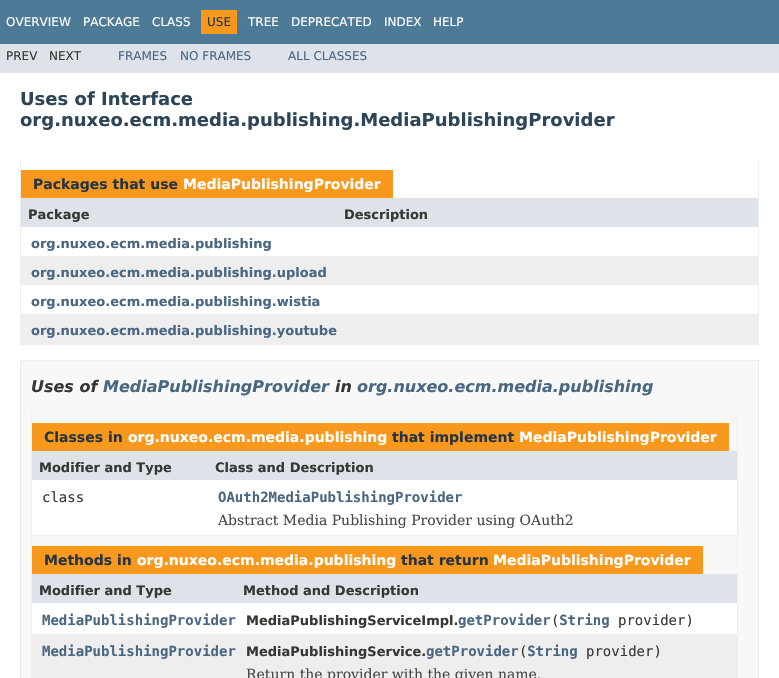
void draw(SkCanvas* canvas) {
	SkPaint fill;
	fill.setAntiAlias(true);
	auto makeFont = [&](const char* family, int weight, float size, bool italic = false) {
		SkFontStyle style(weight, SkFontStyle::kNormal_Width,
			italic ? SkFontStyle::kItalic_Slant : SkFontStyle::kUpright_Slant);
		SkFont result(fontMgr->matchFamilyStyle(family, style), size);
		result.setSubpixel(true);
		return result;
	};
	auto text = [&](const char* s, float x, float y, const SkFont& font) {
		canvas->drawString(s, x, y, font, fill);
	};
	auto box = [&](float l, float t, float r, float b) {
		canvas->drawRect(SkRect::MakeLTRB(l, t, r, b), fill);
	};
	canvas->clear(0xFFFFFFFF);
	fill.setColor(0xFF4D7A97);
	box(0, 0, 779, 44);
	fill.setColor(0xFFF8981D);
	box(201, 10, 237, 34);
	fill.setColor(0xFFDEE3E9);
	box(0, 44, 779, 73);
	fill.setColor(0xFFEEEEEE);
	box(758, 160, 759, 345);
	box(20, 344, 759, 345);
	box(20, 160, 21, 345);
	fill.setColor(0xFFF8981D);
	box(21, 170, 393, 198);
	fill.setColor(0xFFDEE3E9);
	box(21, 198, 758, 227);
	fill.setColor(0xFFEEEEEF);
	box(21, 256, 758, 285);
	box(21, 314, 758, 344);
	fill.setColor(0xFFF8F8F8);
	canvas->drawRect(SkRect::MakeLTRB(20.5f, 360.5f, 758.5f, 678.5f), fill);
	fill.setStyle(SkPaint::kStroke_Style);
	fill.setStrokeWidth(1);
	fill.setColor(0xFFEDEDED);
	canvas->drawRect(SkRect::MakeLTRB(20.5f, 360.5f, 758.5f, 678.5f), fill);
	fill.setStyle(SkPaint::kFill_Style);
	fill.setColor(0xFFEEEEEE);
	box(737, 413, 738, 678);
	box(31, 535, 738, 536);
	box(31, 413, 32, 678);
	fill.setColor(0xFFF8981D);
	box(32, 423, 729, 451);
	fill.setColor(0xFFDEE3E9);
	box(32, 451, 737, 480);
	fill.setColor(0xFFFFFFFF);
	box(32, 480, 737, 535);
	fill.setColor(0xFFF8981D);
	box(32, 546, 703, 574);
	fill.setColor(0xFFDEE3E9);
	box(32, 574, 737, 603);
	fill.setColor(0xFFFFFFFF);
	box(32, 603, 737, 634);
	fill.setColor(0xFFEEEEEF);
	box(32, 634, 737, 678);
	auto font1 = makeFont("DejaVu Sans", 400, 12);
	fill.setColor(0xFFFFFFFF);
	text("OVERVIEW", 6, 26, font1);
	text("PACKAGE", 83, 26, font1);
	text("CLASS", 152, 26, font1);
	fill.setColor(0xFF253441);
	text("USE", 207, 26, font1);
	fill.setColor(0xFFFFFFFF);
	text("TREE", 248, 26, font1);
	text("DEPRECATED", 291, 26, font1);
	text("INDEX", 384, 26, font1);
	text("HELP", 433, 26, font1);
	fill.setColor(0xFF353833);
	text("PREV", 6, 60, font1);
	text("NEXT", 49, 60, font1);
	fill.setColor(0xFF4A6782);
	text("FRAMES", 118, 60, font1);
	text("NO FRAMES", 180, 60, font1);
	text("ALL CLASSES", 288, 60, font1);
	auto font2 = makeFont("DejaVu Sans", 700, 18);
	fill.setColor(0xFF2C4557);
	text("Uses of Interface", 20, 105, font2);
	text("org.nuxeo.ecm.media.publishing.MediaPublishingProvider", 20, 126, font2);
	auto font3 = makeFont("DejaVu Sans", 700, 14);
	fill.setColor(0xFF253441);
	text("Packages that use", 33, 189, font3);
	fill.setColor(0xFFFFFFFF);
	text("MediaPublishingProvider", 183, 189, font3);
	auto font4 = makeFont("DejaVu Sans", 700, 13);
	fill.setColor(0xFF353833);
	text("Package", 28, 219, font4);
	text("Description", 344, 219, font4);
	fill.setColor(0xFF4A6782);
	text("org.nuxeo.ecm.media.publishing", 31, 248, font4);
	text("org.nuxeo.ecm.media.publishing.upload", 31, 277, font4);
	text("org.nuxeo.ecm.media.publishing.wistia", 31, 306, font4);
	text("org.nuxeo.ecm.media.publishing.youtube", 31, 335, font4);
	auto font5 = makeFont("DejaVu Sans", 700, 16, true);
	fill.setColor(0xFF353833);
	text("Uses of", 31, 392, font5);
	fill.setColor(0xFF4A6782);
	text("MediaPublishingProvider", 103, 392, font5);
	fill.setColor(0xFF353833);
	text("in", 335, 392, font5);
	fill.setColor(0xFF4A6782);
	text("org.nuxeo.ecm.media.publishing", 357, 392, font5);
	fill.setColor(0xFF253441);
	text("Classes in", 44, 442, font3);
	fill.setColor(0xFFFFFFFF);
	text("org.nuxeo.ecm.media.publishing", 128, 442, font3);
	fill.setColor(0xFF253441);
	text("that implement", 392, 442, font3);
	fill.setColor(0xFFFFFFFF);
	text("MediaPublishingProvider", 519, 442, font3);
	fill.setColor(0xFF353833);
	text("Modifier and Type", 39, 472, font4);
	text("Class and Description", 215, 472, font4);
	auto font6 = makeFont("DejaVu Sans Mono", 400, 14);
	text("class", 42, 502, font6);
	auto font7 = makeFont("DejaVu Sans Mono", 700, 14);
	fill.setColor(0xFF4A6782);
	text("OAuth2MediaPublishingProvider", 218, 502, font7);
	auto font8 = makeFont("DejaVu Serif", 400, 14);
	fill.setColor(0xFF474747);
	text("Abstract Media Publishing Provider using OAuth2", 218, 525, font8);
	fill.setColor(0xFF253441);
	text("Methods in", 44, 565, font3);
	fill.setColor(0xFFFFFFFF);
	text("org.nuxeo.ecm.media.publishing", 137, 565, font3);
	fill.setColor(0xFF253441);
	text("that return", 401, 565, font3);
	fill.setColor(0xFFFFFFFF);
	text("MediaPublishingProvider", 493, 565, font3);
	fill.setColor(0xFF353833);
	text("Modifier and Type", 39, 595, font4);
	text("Method and Description", 243, 595, font4);
	fill.setColor(0xFF4A6782);
	text("MediaPublishingProvider", 42, 625, font7);
	text("getProvider String", 458, 625, font7);
	fill.setColor(0xFF353833);
	text("MediaPublishingServiceImpl.", 246, 625, font4);
	text("(", 551, 625, font6);
	text("provider)", 618, 625, font6);
	fill.setColor(0xFF4A6782);
	text("MediaPublishingProvider", 42, 656, font7);
	text("getProvider String", 426, 656, font7);
	fill.setColor(0xFF353833);
	text("MediaPublishingService.", 246, 656, font4);
	text("(", 519, 656, font6);
	text("provider)", 586, 656, font6);
	fill.setColor(0xFF474747);
	text("Return the provider with the given name.", 246, 679, font8);
}
